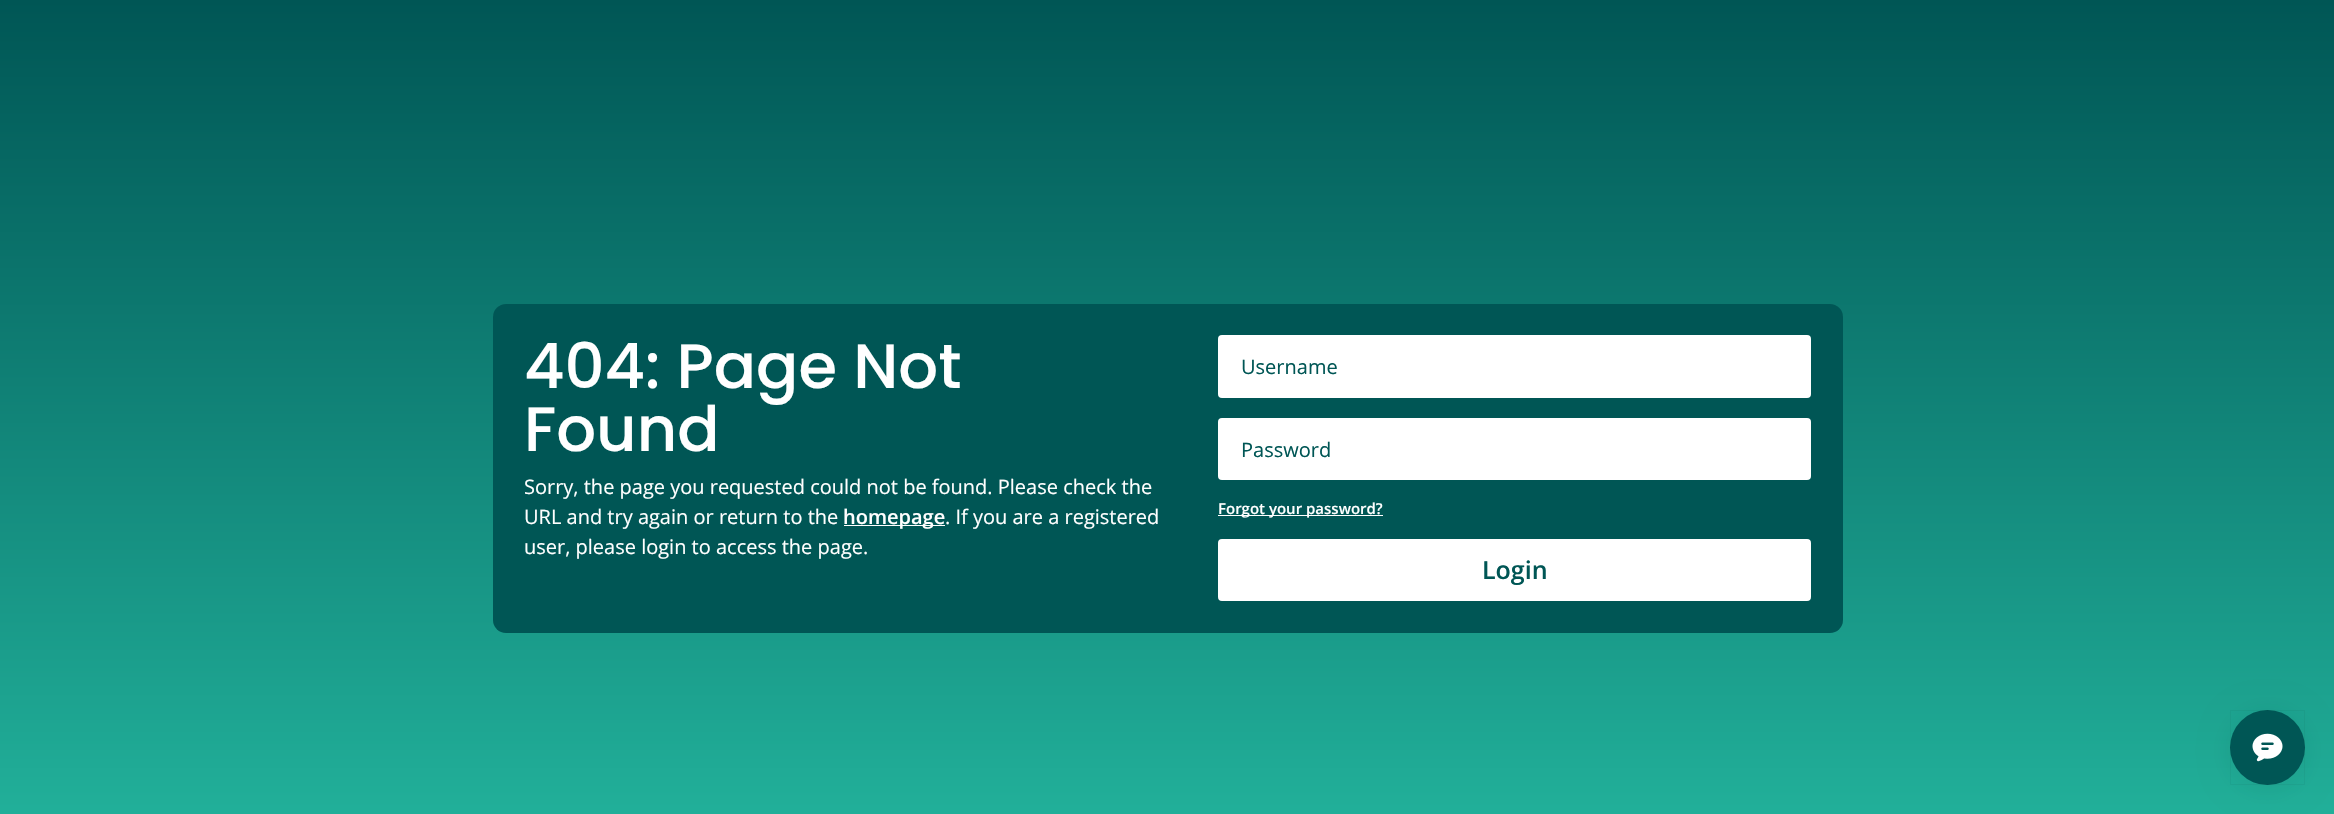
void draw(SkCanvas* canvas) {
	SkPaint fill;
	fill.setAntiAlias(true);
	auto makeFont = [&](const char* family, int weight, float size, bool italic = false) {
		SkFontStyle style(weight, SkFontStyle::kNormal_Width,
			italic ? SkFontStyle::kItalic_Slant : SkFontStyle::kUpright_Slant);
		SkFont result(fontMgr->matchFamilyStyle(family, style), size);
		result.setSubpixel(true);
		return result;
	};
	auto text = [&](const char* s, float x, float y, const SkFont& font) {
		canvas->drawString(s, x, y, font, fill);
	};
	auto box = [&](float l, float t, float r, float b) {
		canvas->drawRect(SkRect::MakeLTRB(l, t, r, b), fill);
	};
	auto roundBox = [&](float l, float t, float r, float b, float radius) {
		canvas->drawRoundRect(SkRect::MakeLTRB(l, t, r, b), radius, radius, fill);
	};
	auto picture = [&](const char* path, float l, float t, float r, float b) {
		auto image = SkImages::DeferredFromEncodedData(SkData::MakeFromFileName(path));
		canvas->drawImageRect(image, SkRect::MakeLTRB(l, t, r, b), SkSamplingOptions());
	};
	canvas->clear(0xFFFFFFFF);
	{
		const SkColor colors[] = {0xFF005655, 0xFF29C4A9};
		const float stops[] = {0, 1};
		const SkPoint ends[] = {{1168, 0}, {1168, 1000}};
		fill.setShader(SkGradientShader::MakeLinear(ends, colors, stops, 2, SkTileMode::kClamp));
		fill.setAlpha(255);
	}
	box(0, 0, 2334, 814);
	fill.setShader(nullptr);
	fill.setColor(0xFF005655);
	roundBox(493, 304, 1843, 633, 13);
	fill.setColor(0xFFFFFFFF);
	box(844, 525, 945, 526);
	roundBox(1218, 335, 1811, 398, 4);
	roundBox(1218, 418, 1811, 480, 4);
	box(1218, 515, 1383, 516);
	canvas->drawRoundRect(SkRect::MakeLTRB(1219.5f, 540.5f, 1809.5f, 599.5f), 2.5f, 2.5f, fill);
	fill.setStyle(SkPaint::kStroke_Style);
	fill.setStrokeWidth(3);
	canvas->drawRoundRect(SkRect::MakeLTRB(1219.5f, 540.5f, 1809.5f, 599.5f), 2.5f, 2.5f, fill);
	fill.setStyle(SkPaint::kFill_Style);
	fill.setColor(0x14000000);
	fill.setMaskFilter(SkMaskFilter::MakeBlur(kNormal_SkBlurStyle, 15));
	canvas->drawRoundRect(SkRect::MakeLTRB(2230, 713, 2305, 788), 37.5f, 37.5f, fill);
	fill.setMaskFilter(nullptr);
	fill.setColor(0xFF005655);
	canvas->drawCircle(2267.5f, 747.5f, 37.5f, fill);
	fill.setStyle(SkPaint::kStroke_Style);
	fill.setStrokeWidth(1);
	fill.setColor(0x0A000000);
	canvas->drawRect(SkRect::MakeLTRB(2230.5f, 710.5f, 2304.5f, 784.5f), fill);
	picture("image0.png", 2252, 733, 2283, 762);
	auto font1 = makeFont("Poppins", 500, 62.5f);
	fill.setStyle(SkPaint::kFill_Style);
	fill.setColor(0xFFFFFFFF);
	text("404: Page Not", 524, 388, font1);
	text("Found", 524, 451, font1);
	auto font2 = makeFont("Open Sans", 400, 20);
	text("Sorry, the page you requested could not be found. Please check the", 524, 494, font2);
	text("URL and try again or return to the", 524, 524, font2);
	auto font3 = makeFont("Open Sans", 600, 20);
	text("homepage", 843, 524, font3);
	text(". If you are a registered", 945, 524, font2);
	text("user, please login to access the page.", 524, 554, font2);
	fill.setColor(0xFF005655);
	text("Username", 1241, 374, font2);
	text("Password", 1241, 457, font2);
	auto font4 = makeFont("Open Sans", 600, 15);
	fill.setColor(0xFFFFFFFF);
	text("Forgot your password?", 1218, 514, font4);
	auto font5 = makeFont("Open Sans", 600, 25);
	fill.setColor(0xFF005655);
	text("Login", 1482, 579, font5);
}
